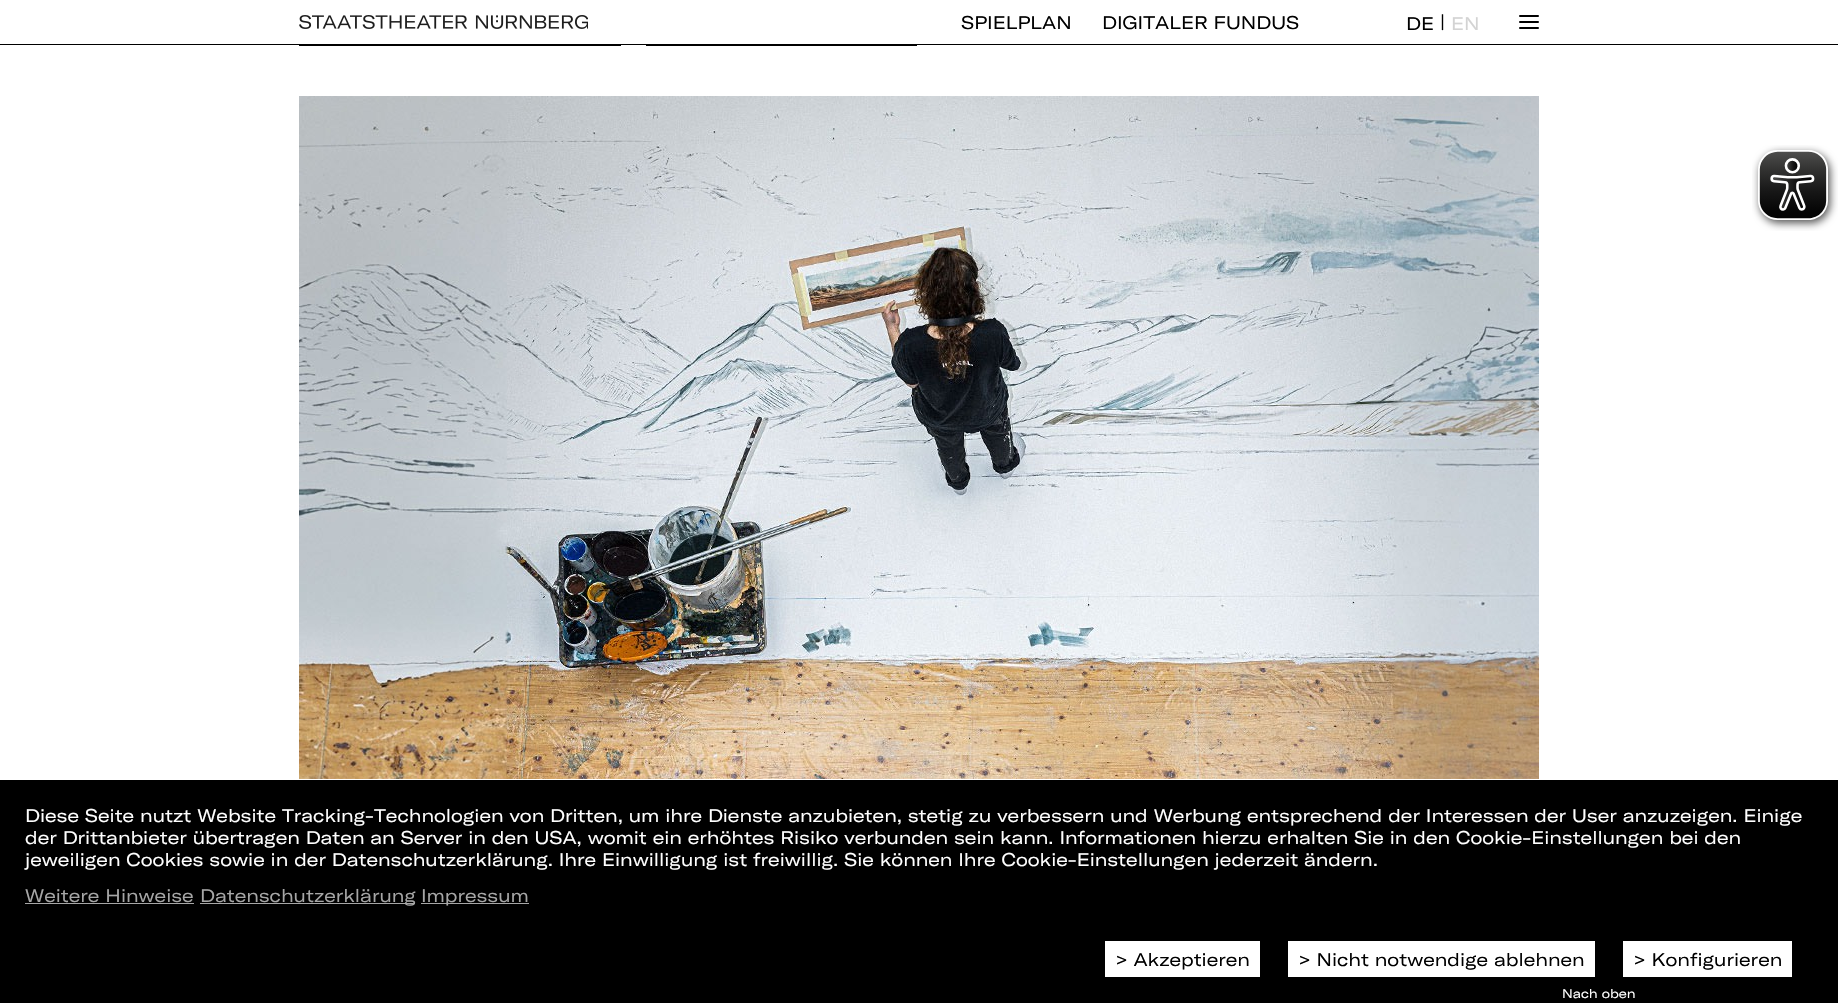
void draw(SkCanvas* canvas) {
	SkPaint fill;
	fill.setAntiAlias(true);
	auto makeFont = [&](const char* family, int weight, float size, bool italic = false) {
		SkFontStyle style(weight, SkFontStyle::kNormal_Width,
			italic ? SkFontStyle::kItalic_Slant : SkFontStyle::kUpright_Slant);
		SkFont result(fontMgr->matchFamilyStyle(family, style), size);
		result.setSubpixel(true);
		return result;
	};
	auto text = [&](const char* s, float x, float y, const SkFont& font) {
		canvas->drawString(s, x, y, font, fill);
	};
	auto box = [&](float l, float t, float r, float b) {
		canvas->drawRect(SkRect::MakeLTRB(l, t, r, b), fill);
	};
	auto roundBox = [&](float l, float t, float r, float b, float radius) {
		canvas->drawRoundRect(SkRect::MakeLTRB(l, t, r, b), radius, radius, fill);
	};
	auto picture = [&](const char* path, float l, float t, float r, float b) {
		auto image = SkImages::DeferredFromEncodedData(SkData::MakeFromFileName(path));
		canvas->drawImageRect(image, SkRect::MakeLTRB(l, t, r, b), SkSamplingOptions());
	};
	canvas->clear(0xFFFFFFFF);
	fill.setStyle(SkPaint::kStroke_Style);
	fill.setStrokeWidth(1);
	fill.setColor(0xFF000000);
	canvas->drawRect(SkRect::MakeLTRB(646.5f, 8.5f, 916.5f, 45.5f), fill);
	fill.setStyle(SkPaint::kFill_Style);
	fill.setColor(0xFFFFFFFF);
	box(646, 8, 917, 44);
	fill.setColor(0xFF000000);
	box(0, 44, 1838, 45);
	picture("image0.png", 299, 15, 588, 29);
	roundBox(1519, 15, 1539, 17, 1);
	roundBox(1519, 21, 1539, 23, 1);
	roundBox(1519, 27, 1539, 29, 1);
	picture("image1.png", 1752, 145, 1838, 231);
	box(299, 45, 621, 46);
	picture("image2.png", 299, 96, 1539, 779);
	box(0, 780, 1838, 1003);
	fill.setColor(0xFFA6A6A6);
	box(25, 903, 194, 904);
	box(200, 903, 415, 904);
	box(421, 903, 529, 904);
	fill.setColor(0xFFFFFFFF);
	box(1105, 941, 1260, 977);
	box(1288, 941, 1595, 977);
	box(1623, 941, 1792, 977);
	auto font1 = makeFont("GT America", 400, 18);
	fill.setColor(0xFF000000);
	text("SPIELPLAN", 961, 29, font1);
	text("DIGITALER FUNDUS", 1102, 29, font1);
	text("DE", 1406, 30, font1);
	text("|", 1440, 28, font1);
	fill.setColor(0xFFD3D3D3);
	text("EN", 1451, 30, font1);
	fill.setColor(0xFFFFFFFF);
	text("Diese Seite nutzt Website Tracking-Technologien von Dritten, um ihre Dienste anzubieten, stetig zu verbessern und Werbung entsprechend der Interessen der User anzuzeigen. Einige", 25, 822, font1);
	text("der Drittanbieter übertragen Daten an Server in den USA, womit ein erhöhtes Risiko verbunden sein kann. Informationen hierzu erhalten Sie in den Cookie-Einstellungen bei den", 25, 844, font1);
	text("jeweiligen Cookies sowie in der Datenschutzerklärung. Ihre Einwilligung ist freiwillig. Sie können Ihre Cookie-Einstellungen jederzeit ändern.", 25, 866, font1);
	fill.setColor(0xFFA6A6A6);
	text("Weitere Hinweise", 25, 902, font1);
	text("Datenschutzerklärung", 200, 902, font1);
	text("Impressum", 421, 902, font1);
	fill.setColor(0xFF000000);
	text("> Akzeptieren", 1115, 966, font1);
	text("> Nicht notwendige ablehnen", 1298, 966, font1);
	text("> Konfigurieren", 1633, 966, font1);
	auto font2 = makeFont("GT America", 400, 12.5f);
	fill.setColor(0xFFFFFFFF);
	text("Nach oben", 1562, 998, font2);
}
